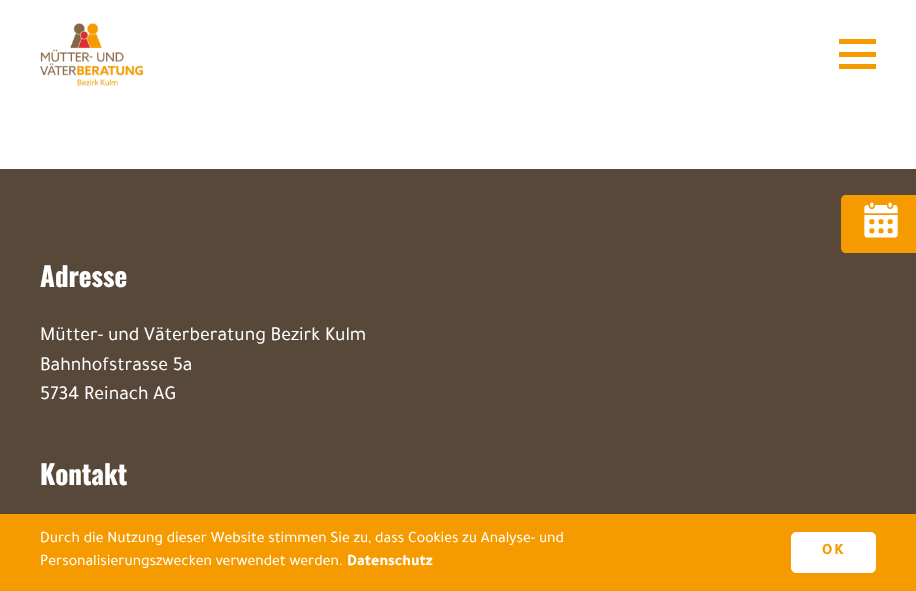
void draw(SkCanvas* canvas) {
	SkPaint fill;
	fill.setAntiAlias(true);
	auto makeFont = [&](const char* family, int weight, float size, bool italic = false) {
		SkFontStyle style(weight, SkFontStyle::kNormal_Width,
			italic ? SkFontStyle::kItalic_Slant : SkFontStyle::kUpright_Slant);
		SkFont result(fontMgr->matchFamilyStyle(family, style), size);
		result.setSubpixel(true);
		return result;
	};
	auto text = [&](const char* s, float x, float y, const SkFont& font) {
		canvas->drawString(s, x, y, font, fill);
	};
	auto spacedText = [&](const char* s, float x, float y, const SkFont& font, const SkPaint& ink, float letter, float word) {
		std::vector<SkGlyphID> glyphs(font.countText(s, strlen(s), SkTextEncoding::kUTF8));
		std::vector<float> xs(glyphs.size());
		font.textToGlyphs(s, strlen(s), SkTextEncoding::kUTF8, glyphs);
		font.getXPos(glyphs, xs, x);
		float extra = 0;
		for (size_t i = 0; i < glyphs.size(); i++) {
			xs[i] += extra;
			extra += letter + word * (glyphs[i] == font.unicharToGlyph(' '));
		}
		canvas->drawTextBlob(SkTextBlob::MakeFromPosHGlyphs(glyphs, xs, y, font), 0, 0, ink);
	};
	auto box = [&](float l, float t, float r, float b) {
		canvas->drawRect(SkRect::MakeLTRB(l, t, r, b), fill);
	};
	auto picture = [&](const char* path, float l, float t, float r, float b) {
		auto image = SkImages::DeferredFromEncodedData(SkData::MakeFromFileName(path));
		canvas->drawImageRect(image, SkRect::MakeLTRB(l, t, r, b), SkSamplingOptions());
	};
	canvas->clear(0xFFFFFFFF);
	picture("image0.png", 40, 23, 143, 86);
	fill.setColor(0xFFF59B00);
	box(839, 52, 876, 57);
	box(839, 39, 876, 44);
	box(839, 64, 876, 69);
	fill.setColor(0xFF584839);
	box(0, 169, 916, 514);
	fill.setColor(0xFFF59B00);
	canvas->drawPath(SkPathBuilder().moveTo(846, 195).lineTo(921, 195).lineTo(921, 253).lineTo(846, 253).cubicTo(843, 253, 841, 251, 841, 248).lineTo(841, 200).cubicTo(841, 197, 843, 195, 846, 195).close().detach(), fill);
	picture("image1.png", 864, 202, 898, 238);
	box(0, 514, 916, 591);
	fill.setColor(0xFFFFFFFF);
	canvas->drawRoundRect(SkRect::MakeLTRB(791.5f, 532.5f, 875.5f, 572.5f), 4.5f, 4.5f, fill);
	fill.setStyle(SkPaint::kStroke_Style);
	fill.setStrokeWidth(1);
	canvas->drawRoundRect(SkRect::MakeLTRB(791.5f, 532.5f, 875.5f, 572.5f), 4.5f, 4.5f, fill);
	auto font1 = makeFont("Oswald", 700, 27);
	fill.setStyle(SkPaint::kFill_Style);
	text("Adresse", 40, 287, font1);
	auto font2 = makeFont("Tajawal", 400, 19.75f);
	text("Mütter- und Väterberatung Bezirk Kulm", 40, 340, font2);
	text("Bahnhofstrasse 5a", 40, 370, font2);
	text("5734 Reinach AG", 40, 399, font2);
	text("Kontakt", 40, 485, font1);
	auto font3 = makeFont("Tajawal", 400, 15.75f);
	text("Durch die Nutzung dieser Website stimmen Sie zu, dass Cookies zu Analyse- und", 40, 542, font3);
	text("Personalisierungszwecken verwendet werden.", 40, 565, font3);
	auto font4 = makeFont("Tajawal", 700, 15.75f);
	text("Datenschutz", 347, 565, font4);
	fill.setColor(0xFFF59B00);
	spacedText("OK", 822, 554, font4, fill, 2, 0);
}
